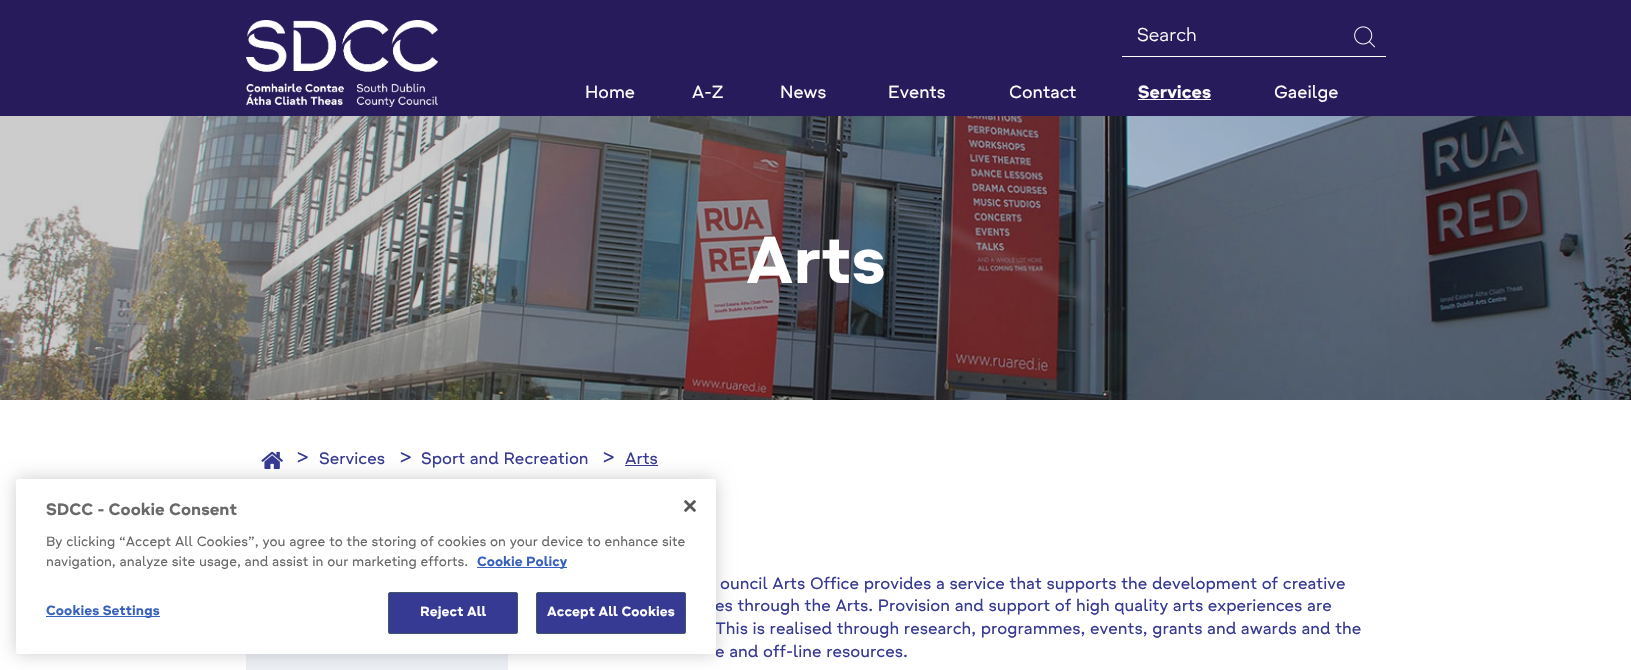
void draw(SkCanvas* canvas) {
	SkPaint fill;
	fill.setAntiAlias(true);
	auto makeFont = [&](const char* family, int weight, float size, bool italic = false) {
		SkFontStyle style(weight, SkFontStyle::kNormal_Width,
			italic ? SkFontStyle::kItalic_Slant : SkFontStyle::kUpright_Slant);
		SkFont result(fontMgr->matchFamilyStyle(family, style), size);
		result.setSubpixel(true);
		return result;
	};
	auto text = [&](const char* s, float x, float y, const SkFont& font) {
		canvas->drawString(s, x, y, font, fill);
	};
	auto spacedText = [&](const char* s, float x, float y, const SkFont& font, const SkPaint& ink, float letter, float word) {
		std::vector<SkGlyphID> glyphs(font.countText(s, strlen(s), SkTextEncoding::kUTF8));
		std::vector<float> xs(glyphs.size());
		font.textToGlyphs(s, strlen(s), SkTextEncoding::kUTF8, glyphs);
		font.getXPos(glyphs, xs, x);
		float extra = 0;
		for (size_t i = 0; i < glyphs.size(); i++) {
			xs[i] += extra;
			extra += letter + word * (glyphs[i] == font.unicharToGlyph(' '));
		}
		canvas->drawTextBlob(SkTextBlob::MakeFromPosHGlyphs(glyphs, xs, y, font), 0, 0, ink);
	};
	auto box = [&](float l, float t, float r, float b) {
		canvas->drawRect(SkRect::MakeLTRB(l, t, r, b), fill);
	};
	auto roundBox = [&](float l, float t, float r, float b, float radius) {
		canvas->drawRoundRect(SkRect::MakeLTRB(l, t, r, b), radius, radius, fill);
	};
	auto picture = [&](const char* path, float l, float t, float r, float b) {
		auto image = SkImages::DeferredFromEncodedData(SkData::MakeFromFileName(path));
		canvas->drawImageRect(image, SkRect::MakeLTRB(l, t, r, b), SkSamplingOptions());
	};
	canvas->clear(0xFFFFFFFF);
	fill.setColor(0xFF271B5B);
	box(0, 0, 1631, 116);
	picture("image0.png", 246, 20, 438, 107);
	fill.setColor(0xFFFFFFFF);
	box(1122, 56, 1386, 57);
	picture("image1.png", 1354, 26, 1376, 48);
	box(1138, 99, 1211, 100);
	picture("image2.png", 0, 116, 1631, 400);
	picture("image3.png", 261, 451, 283, 469);
	fill.setColor(0xFF363A92);
	box(625, 465, 658, 466);
	fill.setColor(0xFFEDF1F6);
	box(246, 654, 508, 670);
	fill.setColor(0x33000000);
	fill.setMaskFilter(SkMaskFilter::MakeBlur(kNormal_SkBlurStyle, 9));
	canvas->drawRoundRect(SkRect::MakeLTRB(16, 479, 716, 654), 2.5f, 2.5f, fill);
	fill.setMaskFilter(nullptr);
	auto font1 = makeFont("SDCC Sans", 300, 18);
	fill.setColor(0xFFFFFFFF);
	text("Search", 1137, 41, font1);
	auto font2 = makeFont("SDCC Sans", 400, 17);
	text("Home", 585, 98, font2);
	text("A-Z", 692, 98, font2);
	text("News", 780, 98, font2);
	text("Events", 888, 98, font2);
	text("Contact", 1009, 98, font2);
	auto font3 = makeFont("SDCC Sans", 700, 17);
	text("Services", 1138, 98, font3);
	text("Gaeilge", 1274, 98, font2);
	auto font4 = makeFont("SDCC Sans", 700, 64);
	text("Arts", 746, 283, font4);
	auto font5 = makeFont("SDCC Sans", 400, 20);
	fill.setColor(0xFF363A92);
	text(">", 296, 464, font5);
	auto font6 = makeFont("SDCC Sans", 400, 16);
	text("Services", 319, 464, font6);
	text(">", 399, 464, font5);
	text("Sport and Recreation", 421, 464, font6);
	text(">", 602, 464, font5);
	text("Arts", 625, 464, font6);
	text("ouncil Arts Office provides a service that supports the development of creative", 720, 589, font6);
	text("es through the Arts. Provision and support of high quality arts experiences are", 715, 611, font6);
	text("This is realised through research, programmes, events, grants and awards and the", 715, 634, font6);
	text("e and off-line resources.", 715, 657, font6);
	fill.setColor(0xFFFFFFFF);
	roundBox(16, 479, 716, 654, 2.5f);
	auto font7 = makeFont("SDCC Sans", 700, 16);
	fill.setColor(0xFF696969);
	text("SDCC - Cookie Consent", 46, 515, font7);
	picture("image4.png", 684, 500, 696, 512);
	auto font8 = makeFont("SDCC Sans", 400, 13);
	text("By clicking “Accept All Cookies”, you agree to the storing of cookies on your device to enhance site", 46, 546, font8);
	text("navigation, analyze site usage, and assist in our marketing efforts.", 46, 566, font8);
	fill.setColor(0xFF3860BE);
	box(477, 567, 567, 568);
	auto font9 = makeFont("SDCC Sans", 700, 13);
	text("Cookie Policy", 477, 566, font9);
	box(46, 616, 160, 617);
	spacedText("Cookies Settings", 46, 615, font9, fill, 0.1f, 0);
	fill.setColor(0xFF363A92);
	canvas->drawRoundRect(SkRect::MakeLTRB(388.5f, 592.5f, 517.5f, 633.5f), 1.5f, 1.5f, fill);
	fill.setStyle(SkPaint::kStroke_Style);
	fill.setStrokeWidth(1);
	fill.setColor(0xFF41586C);
	canvas->drawRoundRect(SkRect::MakeLTRB(388.5f, 592.5f, 517.5f, 633.5f), 1.5f, 1.5f, fill);
	fill.setStyle(SkPaint::kFill_Style);
	fill.setColor(0xFFFFFFFF);
	spacedText("Reject All", 420, 616, font9, fill, 0.1f, 0);
	fill.setColor(0xFF363A92);
	canvas->drawRoundRect(SkRect::MakeLTRB(536.5f, 592.5f, 685.5f, 633.5f), 1.5f, 1.5f, fill);
	fill.setStyle(SkPaint::kStroke_Style);
	fill.setColor(0xFF41586C);
	canvas->drawRoundRect(SkRect::MakeLTRB(536.5f, 592.5f, 685.5f, 633.5f), 1.5f, 1.5f, fill);
	fill.setStyle(SkPaint::kFill_Style);
	fill.setColor(0xFFFFFFFF);
	spacedText("Accept All Cookies", 547, 616, font9, fill, 0.1f, 0);
}
